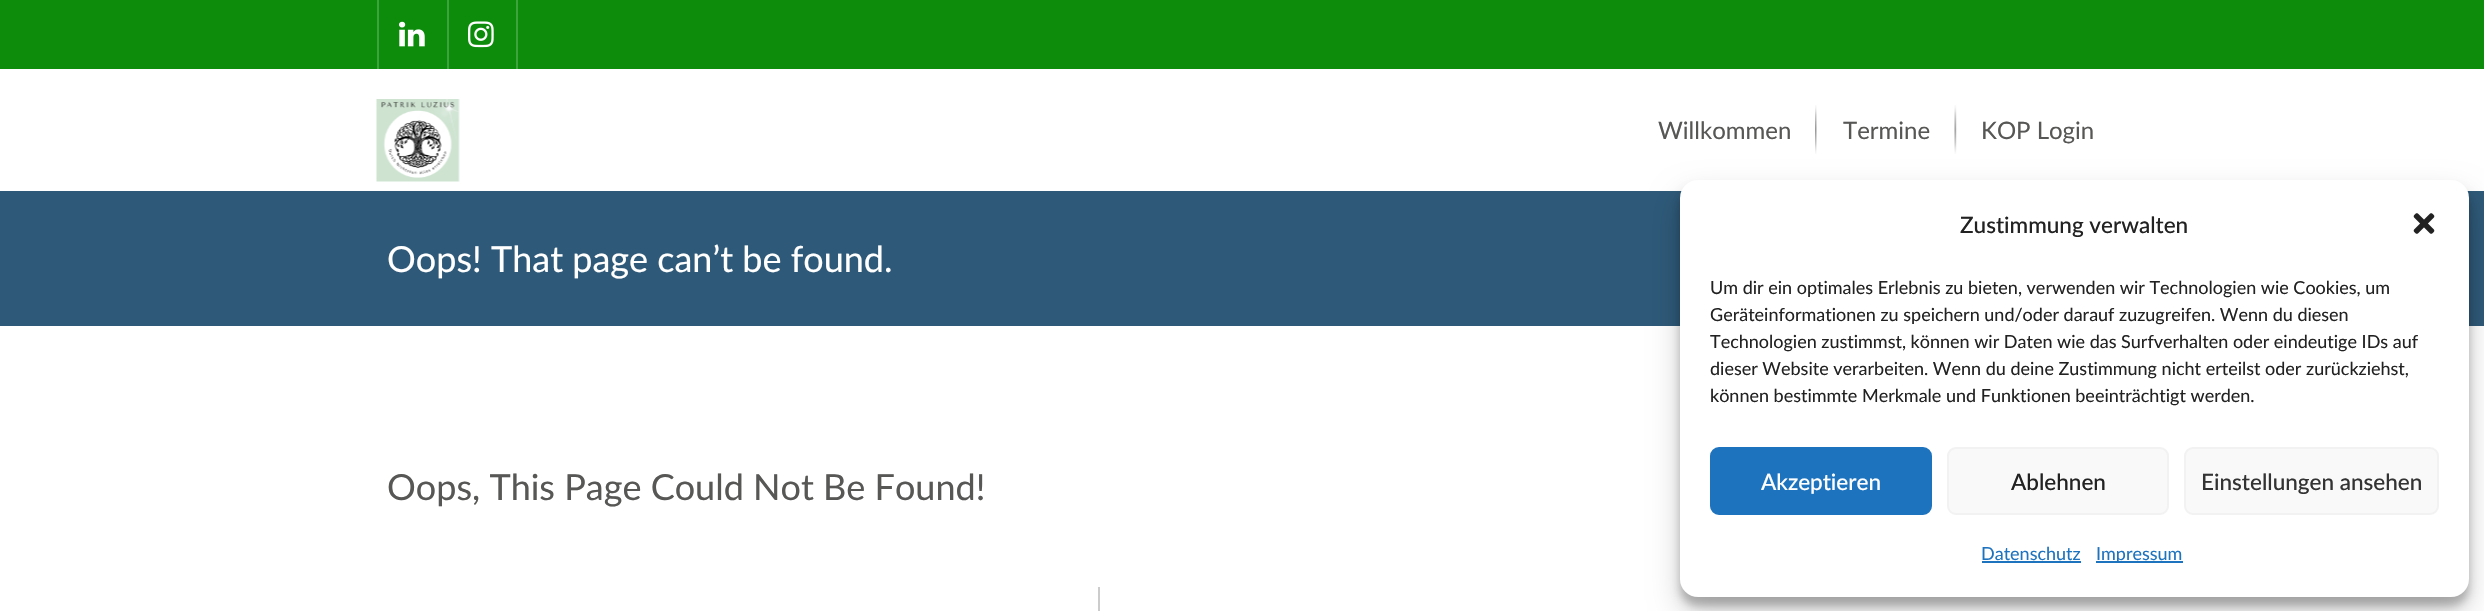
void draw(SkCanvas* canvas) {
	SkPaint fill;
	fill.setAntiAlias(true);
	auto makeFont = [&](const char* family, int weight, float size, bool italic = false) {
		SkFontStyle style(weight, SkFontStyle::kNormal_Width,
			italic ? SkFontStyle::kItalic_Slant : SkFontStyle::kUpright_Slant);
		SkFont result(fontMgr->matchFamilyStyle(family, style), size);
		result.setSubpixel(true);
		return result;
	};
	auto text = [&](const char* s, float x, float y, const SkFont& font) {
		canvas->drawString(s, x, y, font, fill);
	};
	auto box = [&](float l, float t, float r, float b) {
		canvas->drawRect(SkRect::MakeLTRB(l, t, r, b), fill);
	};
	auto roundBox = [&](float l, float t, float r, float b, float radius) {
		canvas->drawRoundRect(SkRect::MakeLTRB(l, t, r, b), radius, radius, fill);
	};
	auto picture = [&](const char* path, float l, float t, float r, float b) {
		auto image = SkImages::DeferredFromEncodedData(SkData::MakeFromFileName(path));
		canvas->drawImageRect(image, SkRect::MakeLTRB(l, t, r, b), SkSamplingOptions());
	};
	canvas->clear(0xFFFFFFFF);
	fill.setColor(0xFF0D8C0C);
	box(0, 0, 2484, 69);
	fill.setColor(0xFF3DA33D);
	box(377, 0, 379, 69);
	picture("image0.png", 399, 21, 425, 47);
	box(516, 0, 518, 69);
	box(447, 0, 449, 69);
	picture("image1.png", 468, 21, 494, 48);
	picture("image2.png", 376, 99, 460, 182);
	picture("image3.png", 1815, 105, 1817, 154);
	picture("image4.png", 1954, 105, 1957, 154);
	fill.setColor(0xFF2E5978);
	box(0, 191, 2484, 326);
	fill.setColor(0xFFCCCCCC);
	box(1098, 587, 1100, 611);
	fill.setColor(0x3B000000);
	fill.setMaskFilter(SkMaskFilter::MakeBlur(kNormal_SkBlurStyle, 4.5f));
	canvas->drawRoundRect(SkRect::MakeLTRB(1680, 189, 2469, 606), 18, 18, fill);
	fill.setMaskFilter(nullptr);
	fill.setColor(0x30000000);
	fill.setMaskFilter(SkMaskFilter::MakeBlur(kNormal_SkBlurStyle, 15));
	canvas->drawRoundRect(SkRect::MakeLTRB(1680, 195, 2469, 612), 18, 18, fill);
	fill.setMaskFilter(nullptr);
	fill.setColor(0xFFFFFFFF);
	roundBox(1680, 180, 2469, 597, 18);
	picture("image5.png", 2413, 213, 2435, 234);
	fill.setColor(0xFF1E73BE);
	canvas->drawRoundRect(SkRect::MakeLTRB(1711, 448, 1931, 514), 8, 8, fill);
	fill.setStyle(SkPaint::kStroke_Style);
	fill.setStrokeWidth(2);
	canvas->drawRoundRect(SkRect::MakeLTRB(1711, 448, 1931, 514), 8, 8, fill);
	fill.setStyle(SkPaint::kFill_Style);
	fill.setColor(0xFFF9F9F9);
	canvas->drawRoundRect(SkRect::MakeLTRB(1948, 448, 2168, 514), 8, 8, fill);
	fill.setStyle(SkPaint::kStroke_Style);
	fill.setColor(0xFFF2F2F2);
	canvas->drawRoundRect(SkRect::MakeLTRB(1948, 448, 2168, 514), 8, 8, fill);
	fill.setStyle(SkPaint::kFill_Style);
	fill.setColor(0xFFF9F9F9);
	canvas->drawRoundRect(SkRect::MakeLTRB(2185, 448, 2438, 514), 8, 8, fill);
	fill.setStyle(SkPaint::kStroke_Style);
	fill.setColor(0xFFF2F2F2);
	canvas->drawRoundRect(SkRect::MakeLTRB(2185, 448, 2438, 514), 8, 8, fill);
	fill.setStyle(SkPaint::kFill_Style);
	fill.setColor(0xFF1E73BE);
	box(1982, 561, 2081, 563);
	box(2096, 561, 2183, 563);
	auto font1 = makeFont("Lato", 400, 24);
	fill.setColor(0xFF575756);
	text("Willkommen", 1658, 139, font1);
	text("Termine", 1843, 139, font1);
	text("KOP Login", 1981, 139, font1);
	auto font2 = makeFont("Lato", 400, 36);
	fill.setColor(0xFFFFFFFF);
	text("Oops! That page can’t be found.", 387, 272, font2);
	fill.setColor(0xFF575756);
	text("Oops, This Page Could Not Be Found!", 387, 500, font2);
	auto font3 = makeFont("Lato", 500, 22.5f);
	fill.setColor(0xFF222222);
	text("Zustimmung verwalten", 1960, 233, font3);
	auto font4 = makeFont("Lato", 400, 18);
	text("Um dir ein optimales Erlebnis zu bieten, verwenden wir Technologien wie Cookies, um", 1710, 294, font4);
	text("Geräteinformationen zu speichern und/oder darauf zuzugreifen. Wenn du diesen", 1710, 321, font4);
	text("Technologien zustimmst, können wir Daten wie das Surfverhalten oder eindeutige IDs auf", 1710, 348, font4);
	text("dieser Website verarbeiten. Wenn du deine Zustimmung nicht erteilst oder zurückziehst,", 1710, 375, font4);
	text("können bestimmte Merkmale und Funktionen beeinträchtigt werden.", 1710, 402, font4);
	fill.setColor(0xFFFFFFFF);
	text("Akzeptieren", 1761, 490, font3);
	fill.setColor(0xFF222222);
	text("Ablehnen", 2011, 490, font3);
	fill.setColor(0xFF333333);
	text("Einstellungen ansehen", 2201, 490, font3);
	fill.setColor(0xFF1E73BE);
	text("Datenschutz", 1981, 560, font4);
	text("Impressum", 2096, 560, font4);
}
